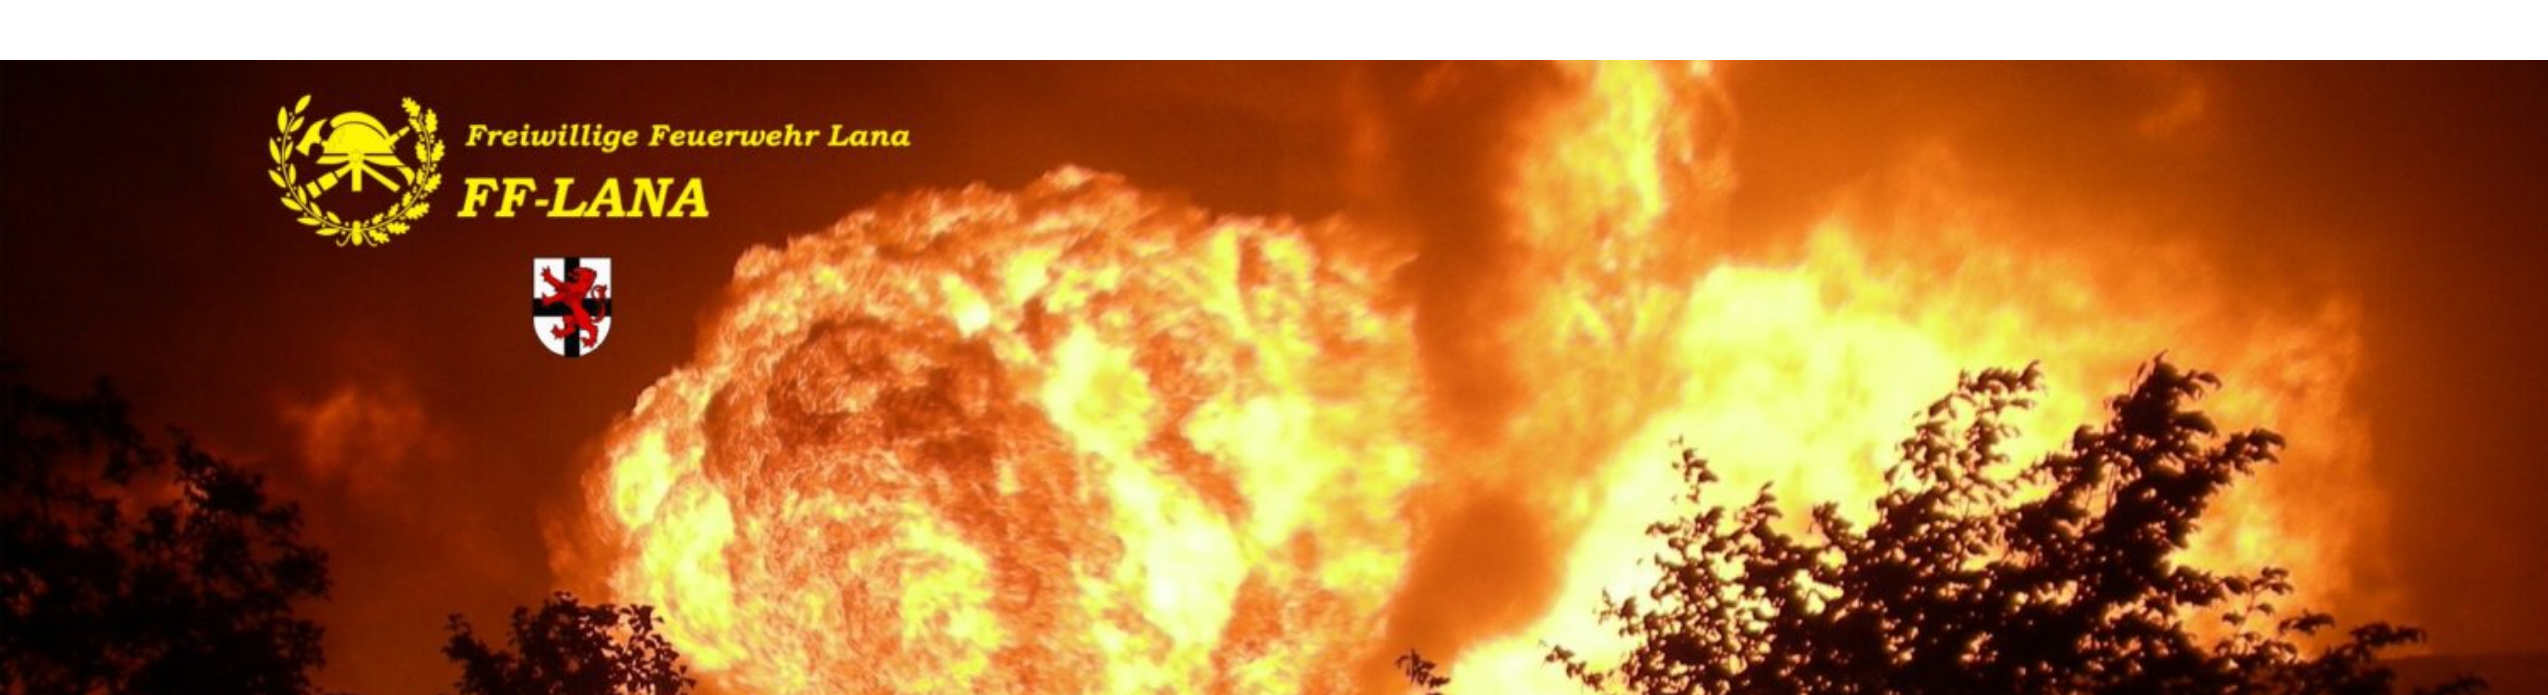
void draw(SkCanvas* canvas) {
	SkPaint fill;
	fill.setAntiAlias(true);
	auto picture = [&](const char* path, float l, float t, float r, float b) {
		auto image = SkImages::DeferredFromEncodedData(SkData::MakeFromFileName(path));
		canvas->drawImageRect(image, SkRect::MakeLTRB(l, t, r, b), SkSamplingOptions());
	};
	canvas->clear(0xFFFFFFFF);
	picture("image0.png", 0, 60, 2548, 695);
}
